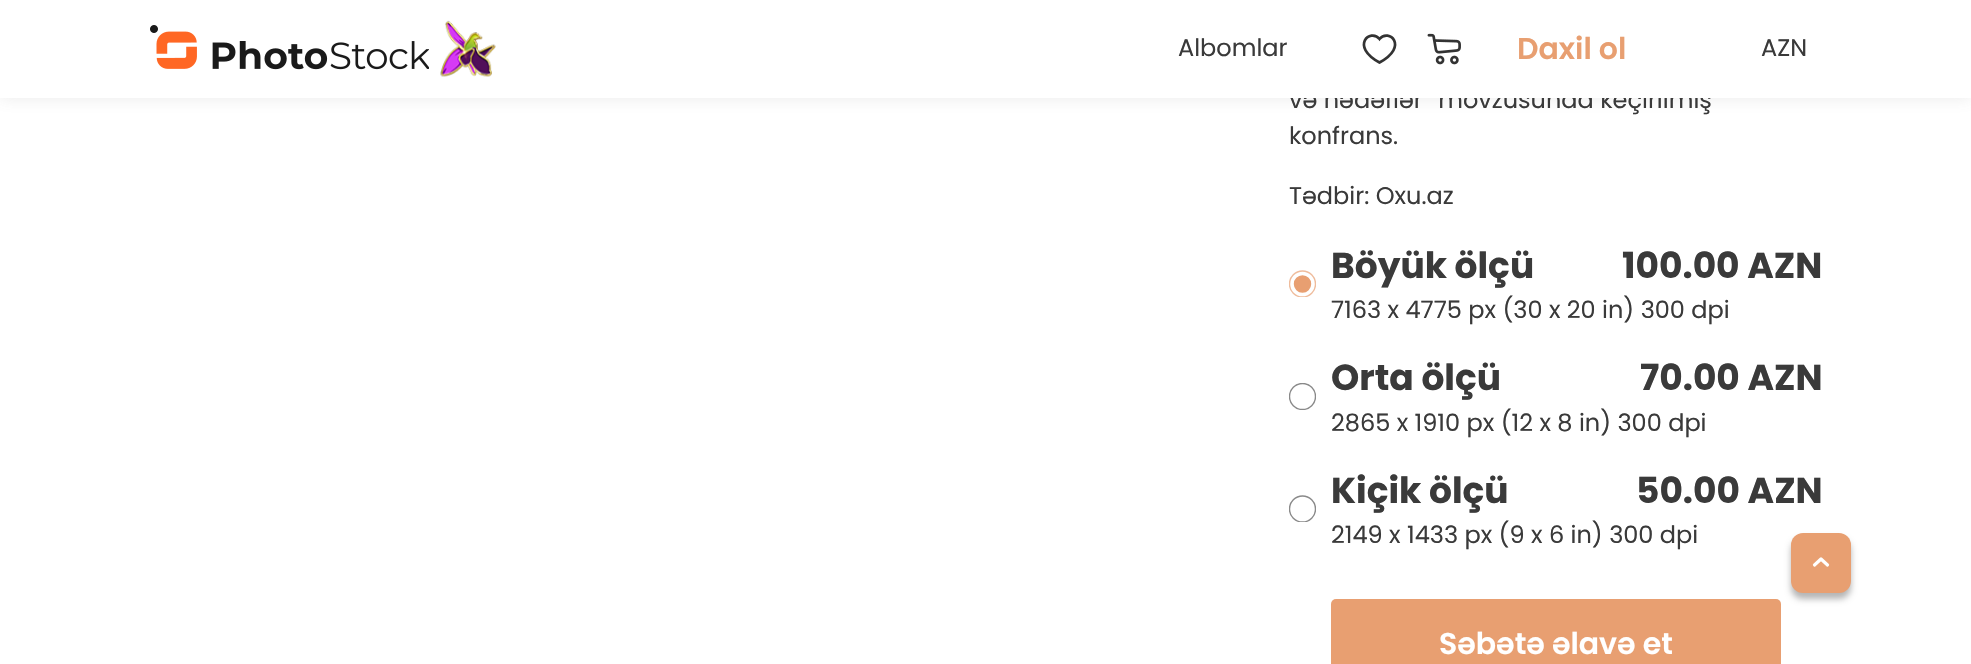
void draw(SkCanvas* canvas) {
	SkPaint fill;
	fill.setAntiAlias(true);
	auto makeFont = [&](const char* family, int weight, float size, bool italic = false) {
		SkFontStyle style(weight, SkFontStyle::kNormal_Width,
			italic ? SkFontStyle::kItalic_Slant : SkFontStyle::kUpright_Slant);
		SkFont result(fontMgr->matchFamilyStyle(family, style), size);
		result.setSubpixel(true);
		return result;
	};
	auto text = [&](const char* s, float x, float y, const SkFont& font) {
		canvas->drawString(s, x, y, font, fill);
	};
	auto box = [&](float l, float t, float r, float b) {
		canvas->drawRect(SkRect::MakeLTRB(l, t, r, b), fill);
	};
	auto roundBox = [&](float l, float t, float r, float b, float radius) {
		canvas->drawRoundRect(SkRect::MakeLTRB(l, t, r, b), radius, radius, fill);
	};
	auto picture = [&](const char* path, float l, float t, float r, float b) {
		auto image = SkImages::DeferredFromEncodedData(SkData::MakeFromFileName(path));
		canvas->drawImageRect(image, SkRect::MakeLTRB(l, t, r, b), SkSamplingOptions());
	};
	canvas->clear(0xFFFFFFFF);
	fill.setColor(0x26747474);
	fill.setMaskFilter(SkMaskFilter::MakeBlur(kNormal_SkBlurStyle, 7.5f));
	canvas->drawRect(SkRect::MakeLTRB(0, 0, 1971, 98), fill);
	fill.setMaskFilter(nullptr);
	canvas->save();
	canvas->clipRect(SkRect::MakeLTRB(1289, 270, 1316, 297));
	fill.setStyle(SkPaint::kStroke_Style);
	fill.setStrokeWidth(1.4f);
	fill.setColor(0xFFEFBC9C);
	canvas->drawCircle(1302.5f, 284, 13, fill);
	canvas->restore();
	fill.setStyle(SkPaint::kFill_Style);
	fill.setColor(0xFFE89F71);
	canvas->drawCircle(1302.5f, 284, 8, fill);
	fill.setStyle(SkPaint::kStroke_Style);
	canvas->drawCircle(1302.5f, 284, 8, fill);
	canvas->save();
	canvas->clipRect(SkRect::MakeLTRB(1289, 383, 1316, 410));
	fill.setColor(0xFF898989);
	canvas->drawCircle(1302.5f, 396.5f, 13, fill);
	canvas->restore();
	canvas->save();
	canvas->clipRect(SkRect::MakeLTRB(1289, 495, 1316, 522));
	canvas->drawCircle(1302.5f, 509, 13, fill);
	canvas->restore();
	fill.setStyle(SkPaint::kFill_Style);
	fill.setColor(0xFFE89F71);
	roundBox(1331, 599, 1781, 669, 5);
	fill.setColor(0x4A000000);
	fill.setMaskFilter(SkMaskFilter::MakeBlur(kNormal_SkBlurStyle, 3));
	canvas->drawRoundRect(SkRect::MakeLTRB(1791, 539, 1851, 599), 12, 12, fill);
	fill.setMaskFilter(nullptr);
	fill.setColor(0xFFE89F71);
	roundBox(1791, 533, 1851, 593, 12);
	fill.setStyle(SkPaint::kStroke_Style);
	fill.setStrokeWidth(3.2f);
	fill.setStrokeCap(SkPaint::kRound_Cap);
	fill.setStrokeJoin(SkPaint::kRound_Join);
	fill.setColor(0xFFFFFFFF);
	canvas->drawPath(SkPathBuilder().moveTo(1814.5f, 565).lineTo(1821, 559).lineTo(1827.5f, 565).detach(), fill);
	auto font1 = makeFont("Poppins", 400, 24);
	fill.setStyle(SkPaint::kFill_Style);
	fill.setColor(0xFF3A3A3A);
	text("və hədəflər” mövzusunda keçirilmiş", 1289, 108, font1);
	fill.setColor(0xFFFFFFFF);
	box(0, 0, 1971, 98);
	fill.setColor(0xFF3A3A3A);
	text("AZN", 1761, 56, font1);
	picture("image2.png", 1427, 33, 1461, 65);
	picture("image1.png", 440, 20, 496, 77);
	picture("image0.png", 150, 25, 429, 70);
	auto font2 = makeFont("Poppins", 600, 30);
	fill.setColor(0xFFE89F71);
	text("Daxil ol", 1517, 59, font2);
	fill.setStyle(SkPaint::kStroke_Style);
	fill.setStrokeWidth(2.7f);
	fill.setStrokeCap(SkPaint::kButt_Cap);
	fill.setStrokeJoin(SkPaint::kMiter_Join);
	fill.setColor(0xFF333333);
	canvas->drawPath(SkPathBuilder().moveTo(1379.5f, 62.5f).cubicTo(1349.5f, 46, 1370.5f, 28, 1379.5f, 39).cubicTo(1388.5f, 28, 1409.5f, 46, 1379.5f, 62.5f).close().detach(), fill);
	fill.setStyle(SkPaint::kFill_Style);
	fill.setColor(0xFF3A3A3A);
	text("Albomlar", 1178, 56, font1);
	text("konfrans.", 1289, 144, font1);
	text("Tədbir: Oxu.az", 1289, 204, font1);
	auto font3 = makeFont("Poppins", 700, 36);
	text("Böyük ölçü", 1331, 278, font3);
	text("100.00 AZN", 1622, 278, font3);
	text("7163 x 4775 px (30 x 20 in) 300 dpi", 1331, 318, font1);
	text("Orta ölçü", 1331, 390, font3);
	text("70.00 AZN", 1640, 390, font3);
	text("2865 x 1910 px (12 x 8 in) 300 dpi", 1331, 431, font1);
	text("Kiçik ölçü", 1331, 503, font3);
	text("50.00 AZN", 1636, 503, font3);
	text("2149 x 1433 px (9 x 6 in) 300 dpi", 1331, 543, font1);
	fill.setColor(0xFFFFFFFF);
	text("Səbətə əlavə et", 1439, 654, font2);
}
